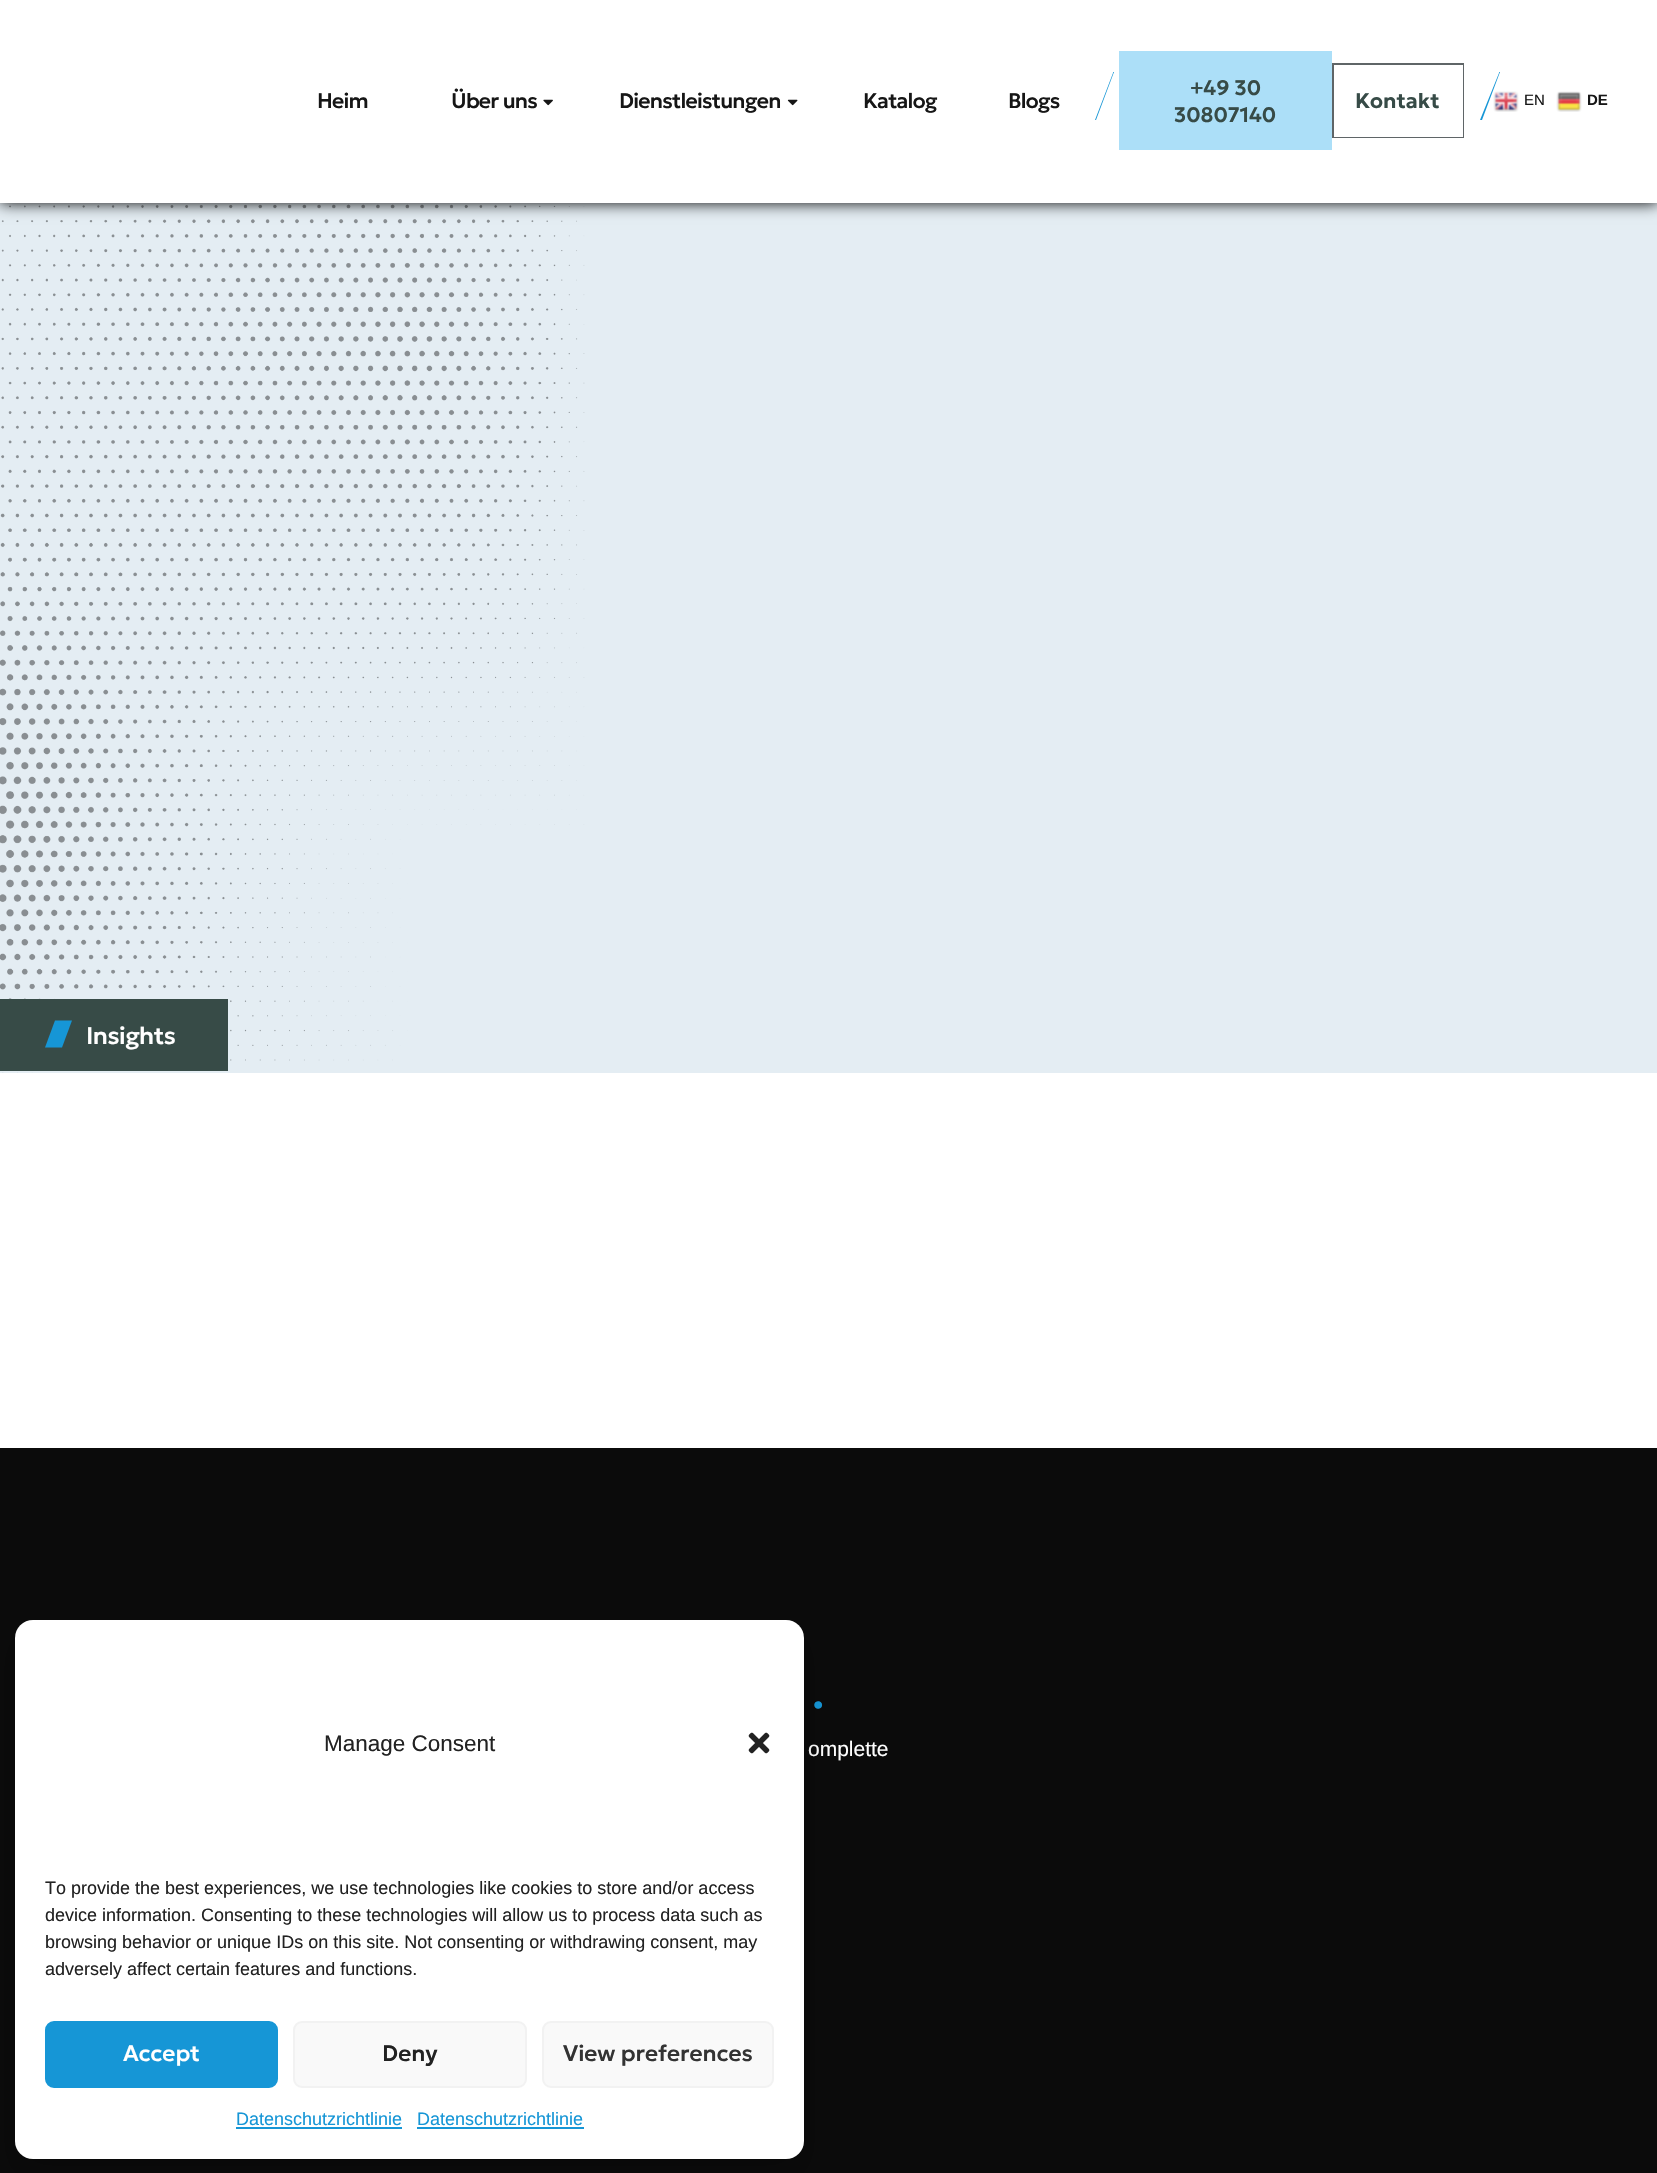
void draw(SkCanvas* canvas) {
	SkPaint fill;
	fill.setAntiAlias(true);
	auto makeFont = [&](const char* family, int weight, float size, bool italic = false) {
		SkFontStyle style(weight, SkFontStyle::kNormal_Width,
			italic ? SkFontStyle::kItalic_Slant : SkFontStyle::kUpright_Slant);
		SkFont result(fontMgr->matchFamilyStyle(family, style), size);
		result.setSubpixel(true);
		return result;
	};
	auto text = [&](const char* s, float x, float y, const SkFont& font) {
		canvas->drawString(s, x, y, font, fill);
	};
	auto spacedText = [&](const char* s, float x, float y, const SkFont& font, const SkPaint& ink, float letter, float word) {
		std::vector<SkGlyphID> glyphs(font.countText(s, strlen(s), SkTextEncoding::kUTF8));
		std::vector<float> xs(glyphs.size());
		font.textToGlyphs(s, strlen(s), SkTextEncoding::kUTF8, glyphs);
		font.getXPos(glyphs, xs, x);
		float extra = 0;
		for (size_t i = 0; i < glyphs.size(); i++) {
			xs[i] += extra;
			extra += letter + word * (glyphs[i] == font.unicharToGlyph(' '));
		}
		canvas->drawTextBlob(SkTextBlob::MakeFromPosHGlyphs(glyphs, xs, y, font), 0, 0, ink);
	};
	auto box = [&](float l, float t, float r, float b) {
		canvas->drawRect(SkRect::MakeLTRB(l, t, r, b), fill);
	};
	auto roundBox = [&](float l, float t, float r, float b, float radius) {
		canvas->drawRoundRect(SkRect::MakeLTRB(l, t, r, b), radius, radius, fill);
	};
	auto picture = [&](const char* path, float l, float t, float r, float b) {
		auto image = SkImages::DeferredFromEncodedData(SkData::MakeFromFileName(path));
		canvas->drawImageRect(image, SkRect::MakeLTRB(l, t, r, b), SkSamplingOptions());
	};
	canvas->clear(0xFFFFFFFF);
	fill.setColor(0xFFE4EDF3);
	box(0, 203, 1657, 1073);
	picture("image4.png", 0, 204, 585, 1073);
	fill.setColor(0xFA000000);
	fill.setMaskFilter(SkMaskFilter::MakeBlur(kNormal_SkBlurStyle, 7.5f));
	canvas->drawRect(SkRect::MakeLTRB(0, 0, 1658, 203), fill);
	fill.setMaskFilter(nullptr);
	fill.setColor(0xFFFFFFFF);
	box(0, 0, 1657, 203);
	picture("image0.png", 543, 99, 553, 106);
	picture("image1.png", 787, 99, 798, 106);
	fill.setColor(0xFF1696D6);
	canvas->drawPath(SkPathBuilder().moveTo(1113, 72).lineTo(1114, 72).lineTo(1096, 120).lineTo(1095, 120).lineTo(1113, 73).close().detach(), fill);
	fill.setColor(0xFFACDFF8);
	box(1119, 51, 1332, 150);
	fill.setStyle(SkPaint::kStroke_Style);
	fill.setStrokeWidth(2);
	fill.setColor(0xFF5F6567);
	canvas->drawRect(SkRect::MakeLTRB(1333, 64, 1463, 137), fill);
	fill.setStyle(SkPaint::kFill_Style);
	fill.setColor(0xFFFFFFFF);
	box(1334, 65, 1463, 137);
	fill.setColor(0xFF1696D6);
	canvas->drawPath(SkPathBuilder().moveTo(1499, 72).lineTo(1500, 72).lineTo(1482, 120).lineTo(1480, 120).lineTo(1499, 73).close().detach(), fill);
	picture("image2.png", 1493, 91, 1519, 112);
	picture("image3.png", 1556, 91, 1582, 112);
	fill.setColor(0xFF374B47);
	box(0, 999, 228, 1071);
	fill.setColor(0xFF1696D6);
	canvas->drawPath(SkPathBuilder().moveTo(55, 1020.5f).lineTo(45, 1047.5f).lineTo(62, 1047.5f).lineTo(72, 1020.5f).close().detach(), fill);
	fill.setColor(0xFF0B0B0B);
	box(0, 1448, 1657, 2173);
	auto font1 = makeFont("Geologica", 500, 21);
	fill.setColor(0xFF161616);
	spacedText("Heim", 317, 108, font1, fill, -0.75f, 0);
	spacedText("Über uns", 451, 108, font1, fill, -0.75f, 0);
	spacedText("Dienstleistungen", 619, 108, font1, fill, -0.75f, 0);
	spacedText("Katalog", 863, 108, font1, fill, -0.75f, 0);
	spacedText("Blogs", 1008, 108, font1, fill, -0.75f, 0);
	auto font2 = makeFont("Geologica", 600, 21);
	fill.setColor(0xFF374B47);
	text("+49 30", 1190, 95, font2);
	text("30807140", 1174, 122, font2);
	text("Kontakt", 1355, 108, font2);
	auto font3 = makeFont("Liberation Sans", 400, 15);
	fill.setColor(0xFF161616);
	text("EN", 1524, 105, font3);
	auto font4 = makeFont("Liberation Sans", 700, 15);
	text("DE", 1587, 105, font4);
	auto font5 = makeFont("Geologica", 500, 24);
	fill.setColor(0xFFFFFFFF);
	spacedText("Insights", 86, 1044, font5, fill, -0.5f, 0);
	auto font6 = makeFont("Geologica", 500, 45);
	fill.setColor(0xFF1696D6);
	spacedText(".", 812, 1708, font6, fill, -2, 0);
	fill.setColor(0xFF0D0D0D);
	box(822, 1704, 823, 1706);
	auto font7 = makeFont("Liberation Sans", 400, 21);
	fill.setColor(0xFFFFFFFF);
	text("omplette", 808, 1756, font7);
	fill.setColor(0x30000000);
	fill.setMaskFilter(SkMaskFilter::MakeBlur(kNormal_SkBlurStyle, 15));
	canvas->drawRoundRect(SkRect::MakeLTRB(15, 1635, 804, 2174), 18, 18, fill);
	fill.setMaskFilter(nullptr);
	fill.setColor(0xFFFFFFFF);
	roundBox(15, 1620, 804, 2159, 18);
	auto font8 = makeFont("Liberation Sans", 400, 22.5f);
	fill.setColor(0xFF222222);
	text("Manage Consent", 324, 1751, font8);
	picture("image5.png", 748, 1732, 770, 1754);
	auto font9 = makeFont("Liberation Sans", 400, 18);
	text("To provide the best experiences, we use technologies like cookies to store and/or access", 45, 1894, font9);
	text("device information. Consenting to these technologies will allow us to process data such as", 45, 1921, font9);
	text("browsing behavior or unique IDs on this site. Not consenting or withdrawing consent, may", 45, 1948, font9);
	text("adversely affect certain features and functions.", 45, 1975, font9);
	fill.setColor(0xFF1696D6);
	canvas->drawRoundRect(SkRect::MakeLTRB(46, 2022, 277, 2087), 8, 8, fill);
	fill.setStyle(SkPaint::kStroke_Style);
	canvas->drawRoundRect(SkRect::MakeLTRB(46, 2022, 277, 2087), 8, 8, fill);
	auto font10 = makeFont("Geologica", 500, 22.5f);
	fill.setStyle(SkPaint::kFill_Style);
	fill.setColor(0xFFFFFFFF);
	text("Accept", 123, 2061, font10);
	fill.setColor(0xFFF9F9F9);
	canvas->drawRoundRect(SkRect::MakeLTRB(294, 2022, 526, 2087), 8, 8, fill);
	fill.setStyle(SkPaint::kStroke_Style);
	fill.setColor(0xFFF2F2F2);
	canvas->drawRoundRect(SkRect::MakeLTRB(294, 2022, 526, 2087), 8, 8, fill);
	fill.setStyle(SkPaint::kFill_Style);
	fill.setColor(0xFF222222);
	text("Deny", 382, 2061, font10);
	fill.setColor(0xFFF9F9F9);
	canvas->drawRoundRect(SkRect::MakeLTRB(543, 2022, 773, 2087), 8, 8, fill);
	fill.setStyle(SkPaint::kStroke_Style);
	fill.setColor(0xFFF2F2F2);
	canvas->drawRoundRect(SkRect::MakeLTRB(543, 2022, 773, 2087), 8, 8, fill);
	fill.setStyle(SkPaint::kFill_Style);
	fill.setColor(0xFF333333);
	text("View preferences", 563, 2061, font10);
	fill.setColor(0xFF1696D6);
	text("Datenschutzrichtlinie", 236, 2125, font9);
	box(236, 2127, 402, 2129);
	text("Datenschutzrichtlinie", 417, 2125, font9);
	box(417, 2127, 584, 2129);
}
